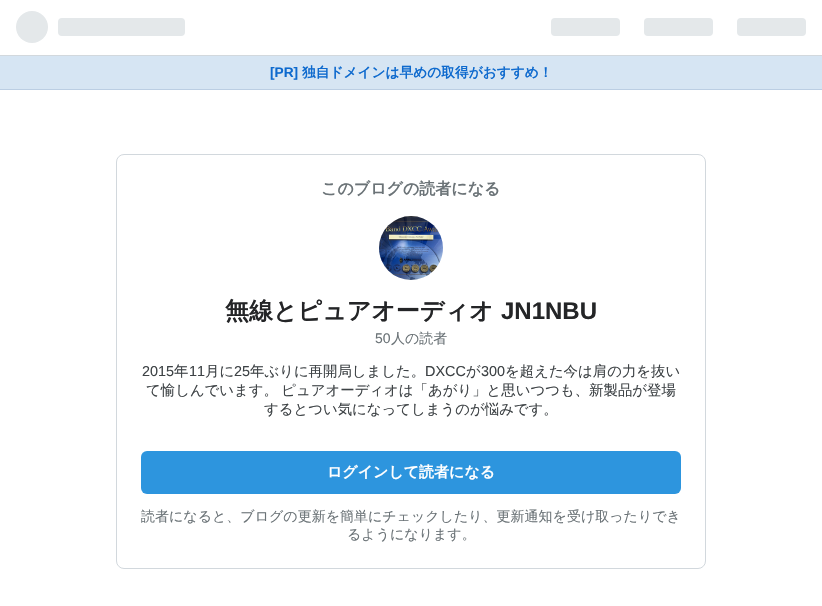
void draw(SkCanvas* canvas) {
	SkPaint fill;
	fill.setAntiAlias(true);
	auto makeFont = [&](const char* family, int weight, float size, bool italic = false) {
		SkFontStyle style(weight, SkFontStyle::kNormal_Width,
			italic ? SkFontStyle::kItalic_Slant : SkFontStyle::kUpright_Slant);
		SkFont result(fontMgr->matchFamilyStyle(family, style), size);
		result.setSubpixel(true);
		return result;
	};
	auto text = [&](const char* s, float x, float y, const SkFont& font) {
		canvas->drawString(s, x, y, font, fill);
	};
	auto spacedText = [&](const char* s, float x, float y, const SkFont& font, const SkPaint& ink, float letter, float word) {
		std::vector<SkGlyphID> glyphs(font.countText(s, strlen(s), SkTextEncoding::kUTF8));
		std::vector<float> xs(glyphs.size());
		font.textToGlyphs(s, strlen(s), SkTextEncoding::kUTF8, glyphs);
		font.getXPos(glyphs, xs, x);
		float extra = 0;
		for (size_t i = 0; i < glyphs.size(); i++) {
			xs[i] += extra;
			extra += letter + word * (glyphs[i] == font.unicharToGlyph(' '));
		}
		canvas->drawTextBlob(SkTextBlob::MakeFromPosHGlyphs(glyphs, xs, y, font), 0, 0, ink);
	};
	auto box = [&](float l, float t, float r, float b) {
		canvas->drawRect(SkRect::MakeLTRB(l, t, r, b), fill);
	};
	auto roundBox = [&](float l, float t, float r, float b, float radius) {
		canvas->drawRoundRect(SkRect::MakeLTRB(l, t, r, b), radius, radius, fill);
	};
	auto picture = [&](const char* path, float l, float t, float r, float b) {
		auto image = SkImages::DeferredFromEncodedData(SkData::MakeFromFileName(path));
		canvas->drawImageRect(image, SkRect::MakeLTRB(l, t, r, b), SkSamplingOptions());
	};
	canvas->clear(0xFFFFFFFF);
	fill.setColor(0xFFD2D8DD);
	box(0, 55, 822, 56);
	picture("image0.png", 16, 11, 185, 43);
	picture("image1.png", 551, 18, 806, 36);
	fill.setColor(0xFFD6E5F3);
	box(0, 56, 822, 89);
	fill.setColor(0xFFBBCEE3);
	box(0, 89, 822, 90);
	fill.setStyle(SkPaint::kStroke_Style);
	fill.setStrokeWidth(1);
	fill.setColor(0xFFD2D8DD);
	canvas->drawRoundRect(SkRect::MakeLTRB(116.5f, 154.5f, 705.5f, 568.5f), 7.5f, 7.5f, fill);
	picture("image2.png", 379, 216, 443, 280);
	fill.setStyle(SkPaint::kFill_Style);
	fill.setColor(0xFF2D95DE);
	roundBox(141, 451, 681, 494, 6);
	auto font1 = makeFont("Liberation Sans", 700, 13.7f);
	fill.setColor(0xFF0E6ACE);
	text("[PR]", 270, 77, font1);
	auto font2 = makeFont("WenQuanYi Zen Hei", 700, 13.7f);
	text("独自ドメインは早めの取得がおすすめ！", 302, 77, font2);
	auto font3 = makeFont("WenQuanYi Zen Hei", 700, 16);
	fill.setColor(0xFF6B7377);
	text("このブログの読者になる", 321, 194, font3);
	auto font4 = makeFont("WenQuanYi Zen Hei", 700, 24);
	fill.setColor(0xFF242527);
	text("無線とピュアオーディオ", 225, 319, font4);
	auto font5 = makeFont("Liberation Sans", 700, 24);
	text("JN1NBU", 501, 319, font5);
	auto font6 = makeFont("Liberation Sans", 400, 14);
	fill.setColor(0xFF6B7377);
	text("50", 375, 343, font6);
	auto font7 = makeFont("WenQuanYi Zen Hei", 500, 14);
	text("人の読者", 391, 343, font7);
	auto font8 = makeFont("Liberation Sans", 400, 14.4f);
	fill.setColor(0xFF3D4245);
	text("2015", 142, 376, font8);
	auto font9 = makeFont("WenQuanYi Zen Hei", 500, 14.4f);
	text("年", 174, 376, font9);
	text("11", 189, 376, font8);
	text("月に", 205, 376, font9);
	text("25", 234, 376, font8);
	text("年ぶりに再開局しました。", 250, 376, font9);
	text("DXCC", 425, 376, font8);
	text("が", 466, 376, font9);
	text("300", 481, 376, font8);
	text("を超えた今は肩の力を抜い", 505, 376, font9);
	spacedText("て愉しんでいます。 ピュアオーディオは「あがり」と思いつつも、新製品が登場", 146, 395, font9, fill, 0, -1);
	text("するとつい気になってしまうのが悩みです。", 264, 414, font9);
	auto font10 = makeFont("WenQuanYi Zen Hei", 700, 15);
	fill.setColor(0xFFFFFFFF);
	text("ログインして読者になる", 327, 477, font10);
	fill.setColor(0xFF6B7377);
	text("読者になると、ブログの更新を簡単にチェックしたり、更新通知を受け取ったりでき", 141, 521, font7);
	text("るようになります。", 347, 539, font7);
}
